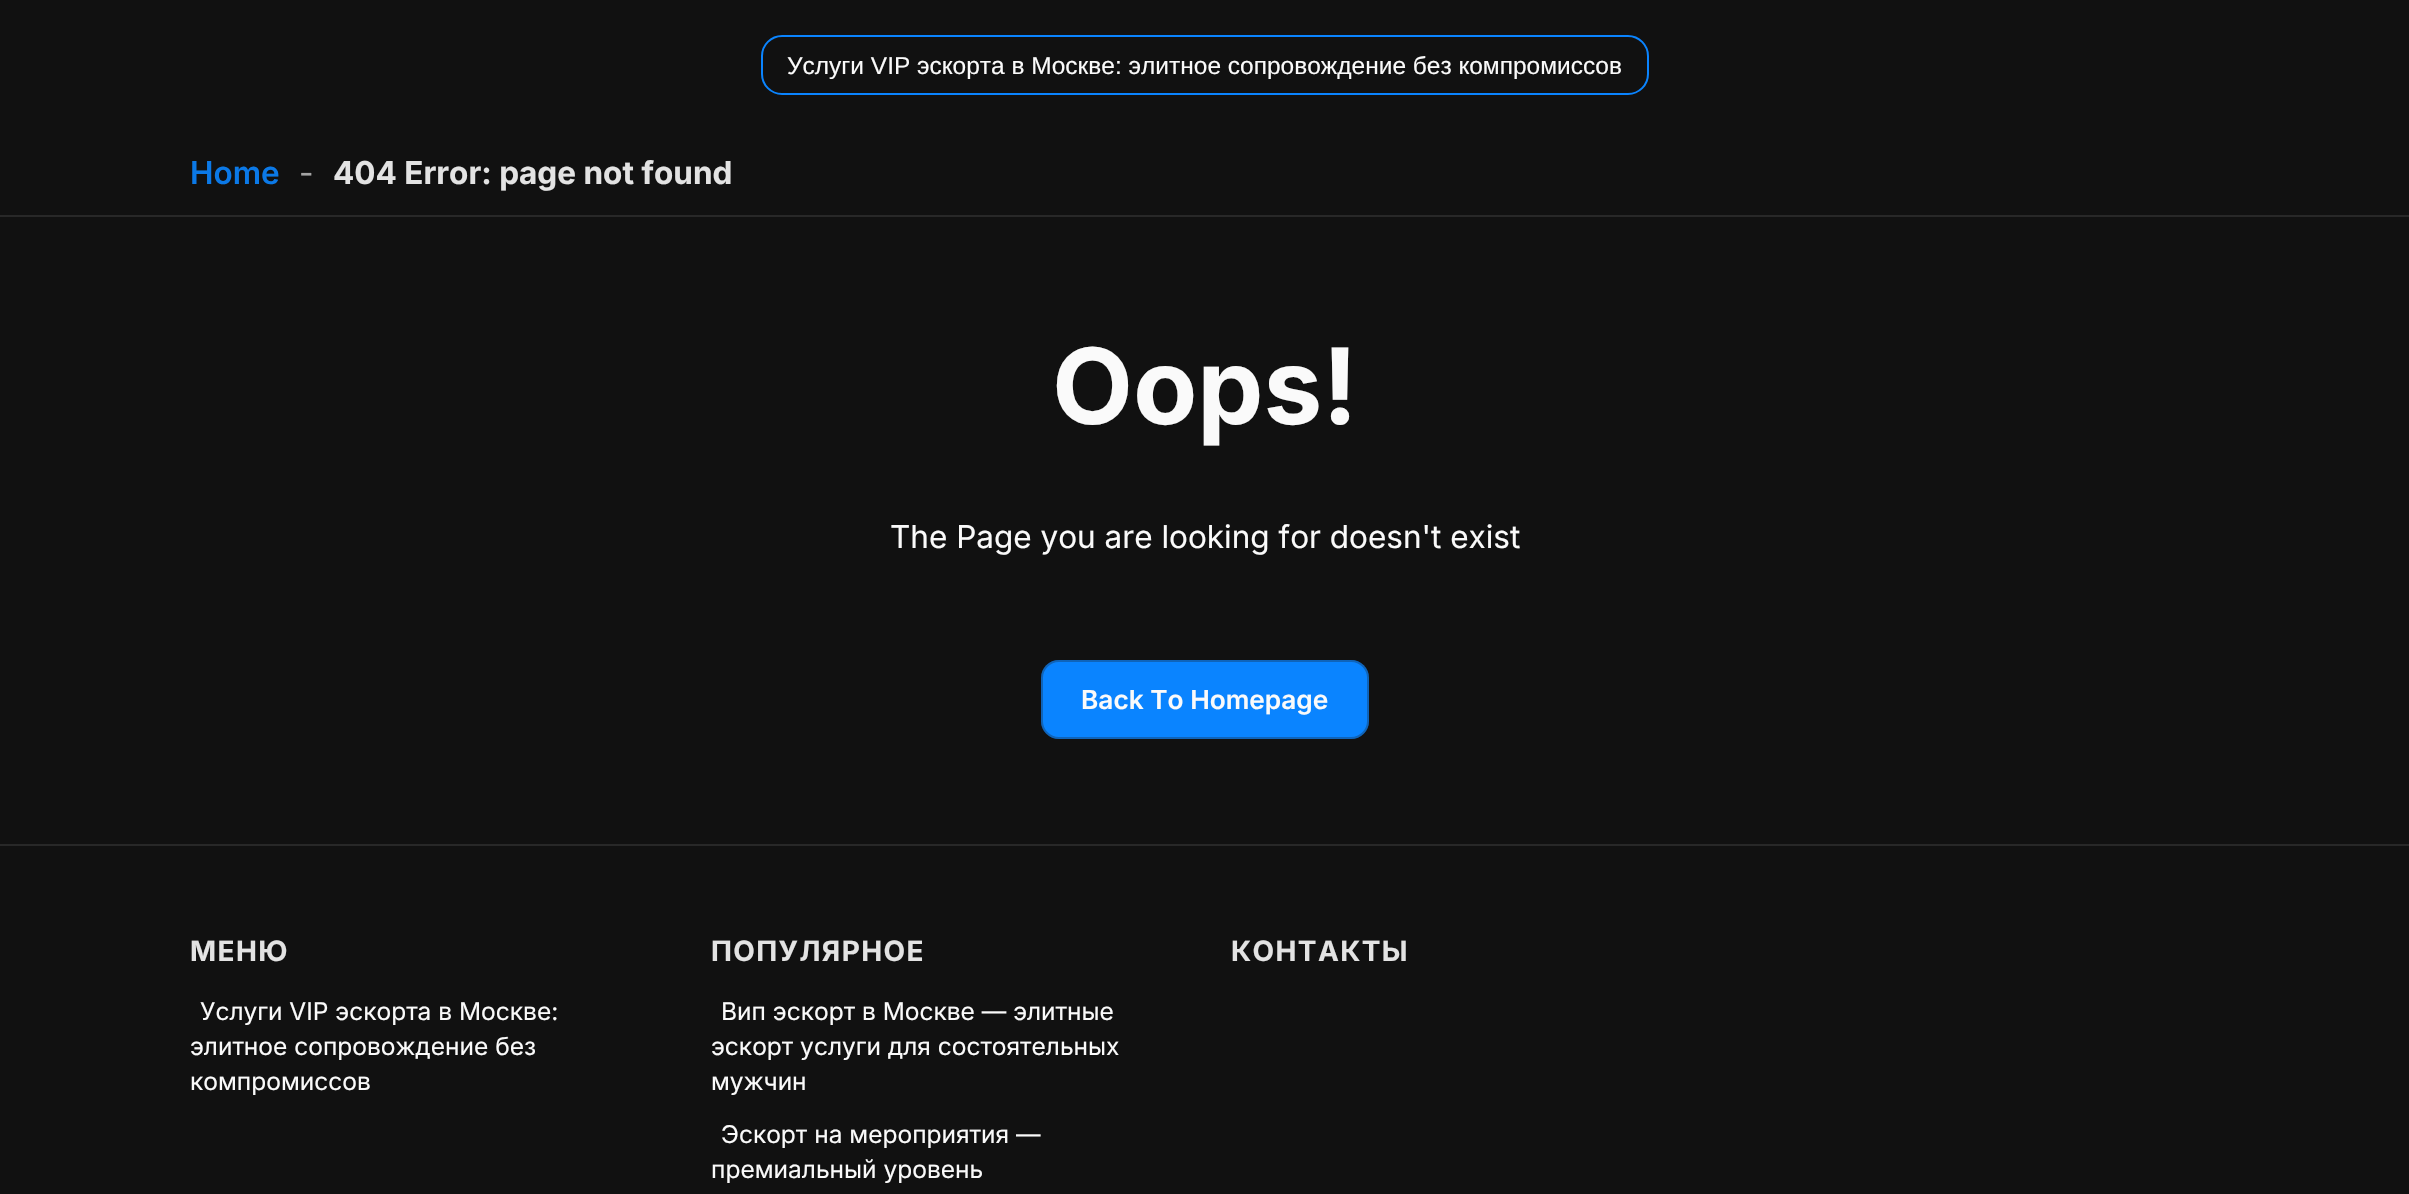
void draw(SkCanvas* canvas) {
	SkPaint fill;
	fill.setAntiAlias(true);
	auto makeFont = [&](const char* family, int weight, float size, bool italic = false) {
		SkFontStyle style(weight, SkFontStyle::kNormal_Width,
			italic ? SkFontStyle::kItalic_Slant : SkFontStyle::kUpright_Slant);
		SkFont result(fontMgr->matchFamilyStyle(family, style), size);
		result.setSubpixel(true);
		return result;
	};
	auto text = [&](const char* s, float x, float y, const SkFont& font) {
		canvas->drawString(s, x, y, font, fill);
	};
	auto spacedText = [&](const char* s, float x, float y, const SkFont& font, const SkPaint& ink, float letter, float word) {
		std::vector<SkGlyphID> glyphs(font.countText(s, strlen(s), SkTextEncoding::kUTF8));
		std::vector<float> xs(glyphs.size());
		font.textToGlyphs(s, strlen(s), SkTextEncoding::kUTF8, glyphs);
		font.getXPos(glyphs, xs, x);
		float extra = 0;
		for (size_t i = 0; i < glyphs.size(); i++) {
			xs[i] += extra;
			extra += letter + word * (glyphs[i] == font.unicharToGlyph(' '));
		}
		canvas->drawTextBlob(SkTextBlob::MakeFromPosHGlyphs(glyphs, xs, y, font), 0, 0, ink);
	};
	auto box = [&](float l, float t, float r, float b) {
		canvas->drawRect(SkRect::MakeLTRB(l, t, r, b), fill);
	};
	auto roundBox = [&](float l, float t, float r, float b, float radius) {
		canvas->drawRoundRect(SkRect::MakeLTRB(l, t, r, b), radius, radius, fill);
	};
	canvas->clear(0xFF111111);
	fill.setStyle(SkPaint::kStroke_Style);
	fill.setStrokeWidth(2);
	fill.setColor(0xFF0A84FF);
	canvas->drawRoundRect(SkRect::MakeLTRB(762, 36, 1648, 94), 20, 20, fill);
	fill.setStyle(SkPaint::kFill_Style);
	fill.setColor(0xFF282828);
	box(0, 215, 2409, 217);
	fill.setColor(0xFF0A84FF);
	roundBox(1041, 660, 1369, 739, 18);
	fill.setStyle(SkPaint::kStroke_Style);
	fill.setColor(0x4D1C1C1C);
	canvas->drawRoundRect(SkRect::MakeLTRB(1042, 661, 1368, 738), 17, 17, fill);
	fill.setStyle(SkPaint::kFill_Style);
	fill.setColor(0xFF282828);
	box(0, 844, 2409, 846);
	auto font1 = makeFont("Liberation Sans", 400, 24.5f);
	fill.setColor(0xFFFAFAFA);
	text("Услуги VIP эскорта в Москве: элитное сопровождение без компромиссов", 787, 74, font1);
	auto font2 = makeFont("Inter", 600, 31.5f);
	fill.setColor(0xFF0B79E7);
	text("Home", 190, 184, font2);
	auto font3 = makeFont("Inter", 400, 31.5f);
	fill.setColor(0xFFA4A4A4);
	text("-", 299, 184, font3);
	auto font4 = makeFont("Inter", 700, 31.5f);
	fill.setColor(0xFFE3E3E3);
	text("404 Error: page not found", 333, 184, font4);
	auto font5 = makeFont("Inter", 700, 105);
	fill.setColor(0xFFFAFAFA);
	text("Oops!", 1052, 424, font5);
	text("The Page you are looking for doesn't exist", 890, 548, font3);
	auto font6 = makeFont("Inter", 600, 26.25f);
	text("Back To Homepage", 1081, 709, font6);
	auto font7 = makeFont("Inter", 700, 28);
	fill.setColor(0xFFE3E3E3);
	spacedText("МЕНЮ", 190, 961, font7, fill, 1.4f, 0);
	auto font8 = makeFont("Inter", 400, 24.5f);
	fill.setColor(0xFFFAFAFA);
	text("Услуги VIP эскорта в Москве:", 200, 1020, font8);
	text("элитное сопровождение без", 190, 1055, font8);
	text("компромиссов", 190, 1090, font8);
	fill.setColor(0xFFE3E3E3);
	spacedText("ПОПУЛЯРНОЕ", 711, 961, font7, fill, 1.4f, 0);
	fill.setColor(0xFFFAFAFA);
	text("Вип эскорт в Москве — элитные", 721, 1020, font8);
	text("эскорт услуги для состоятельных", 711, 1055, font8);
	text("мужчин", 711, 1090, font8);
	text("Эскорт на мероприятия —", 721, 1143, font8);
	text("премиальный уровень", 711, 1178, font8);
	fill.setColor(0xFFE3E3E3);
	spacedText("КОНТАКТЫ", 1231, 961, font7, fill, 1.4f, 0);
}
